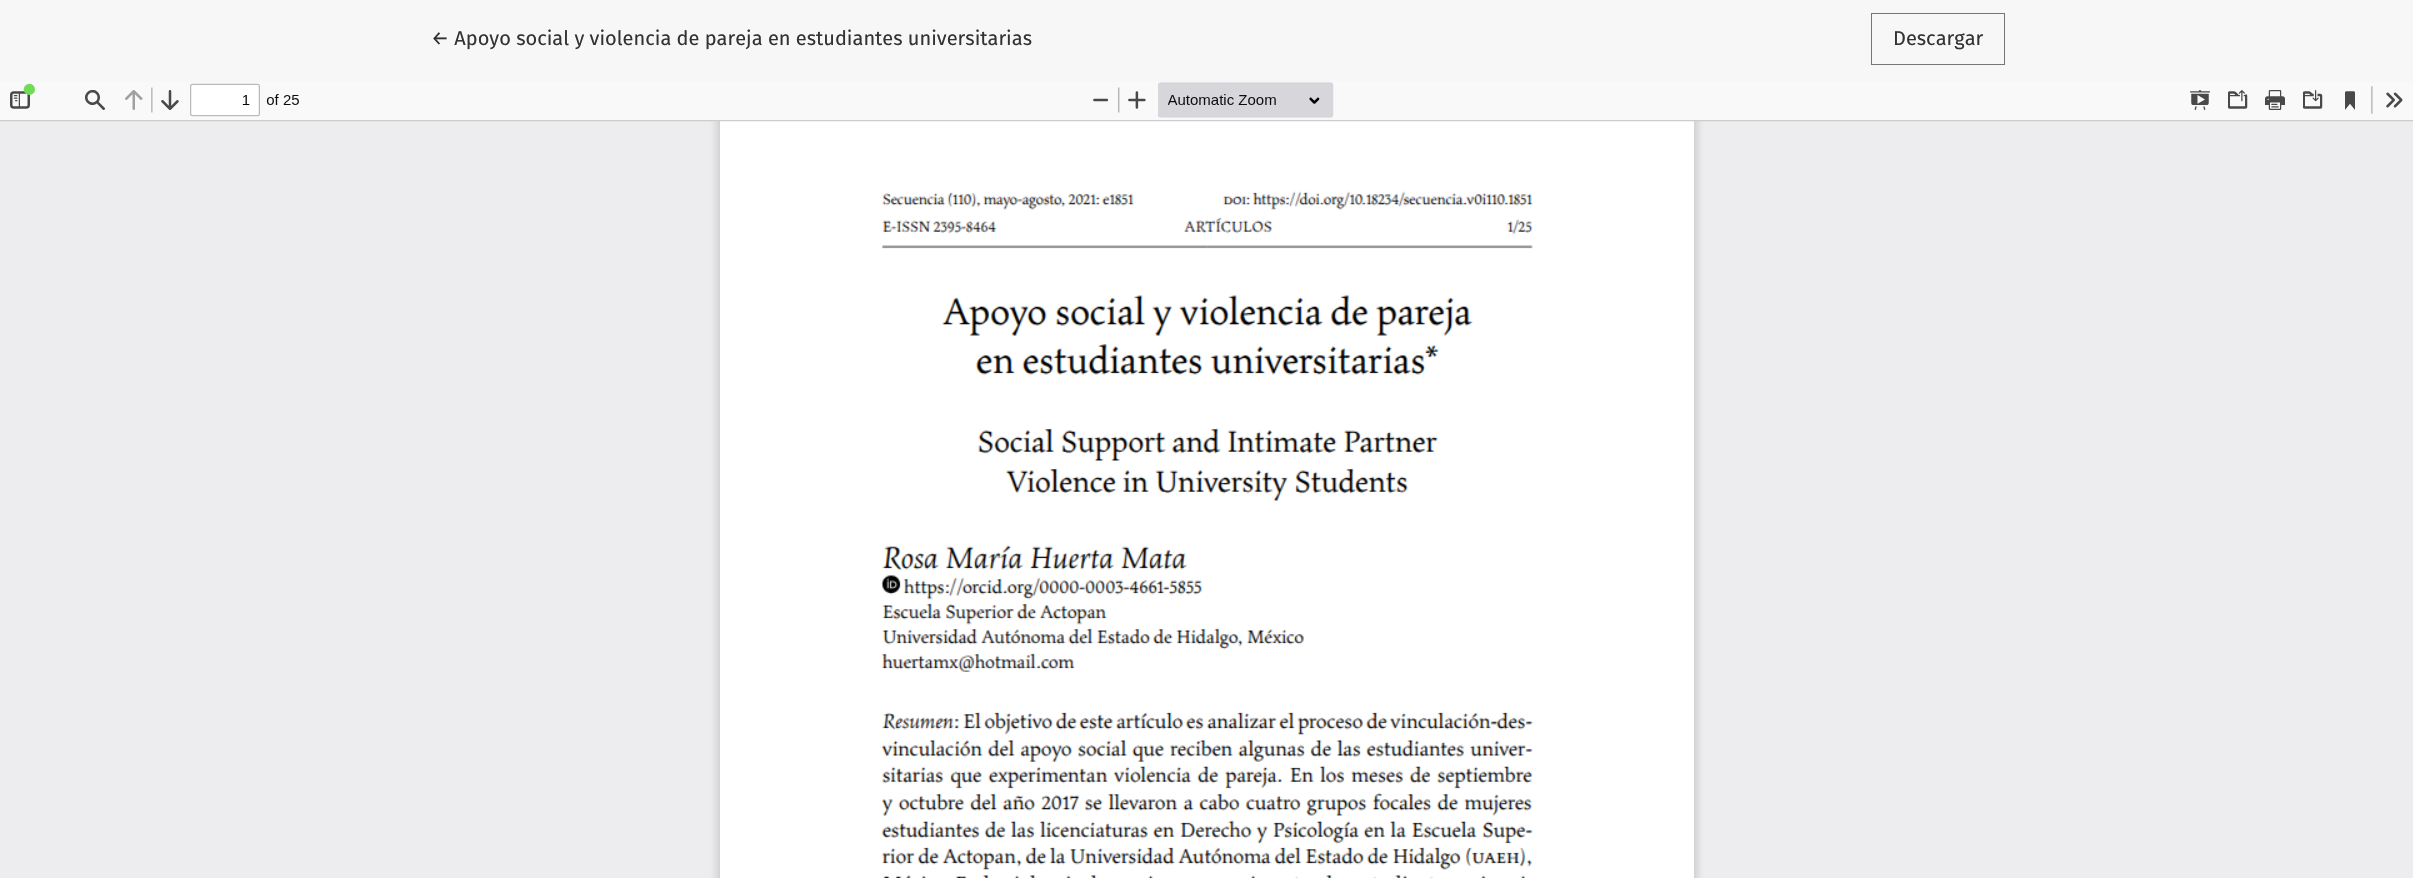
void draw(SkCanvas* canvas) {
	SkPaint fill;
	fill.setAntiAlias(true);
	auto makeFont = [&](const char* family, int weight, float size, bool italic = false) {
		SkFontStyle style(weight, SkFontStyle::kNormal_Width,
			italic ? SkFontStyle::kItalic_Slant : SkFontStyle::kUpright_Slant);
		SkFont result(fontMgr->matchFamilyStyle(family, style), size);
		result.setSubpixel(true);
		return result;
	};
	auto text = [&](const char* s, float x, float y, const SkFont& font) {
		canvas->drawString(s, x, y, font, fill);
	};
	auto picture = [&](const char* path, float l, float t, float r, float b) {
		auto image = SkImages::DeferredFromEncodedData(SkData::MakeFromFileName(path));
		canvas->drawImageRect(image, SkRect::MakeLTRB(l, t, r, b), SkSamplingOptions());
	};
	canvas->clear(0xFFF7F7F7);
	fill.setStyle(SkPaint::kStroke_Style);
	fill.setStrokeWidth(1);
	fill.setColor(0xFF757575);
	canvas->drawRect(SkRect::MakeLTRB(1871.5f, 13.5f, 2004.5f, 64.5f), fill);
	picture("image0.png", 0, 82, 2413, 878);
	auto font1 = makeFont("Fira Sans", 400, 20);
	fill.setStyle(SkPaint::kFill_Style);
	fill.setColor(0xFF333333);
	text("← Apoyo social y violencia de pareja en estudiantes universitarias", 431, 45, font1);
	text("Descargar", 1893, 45, font1);
}
